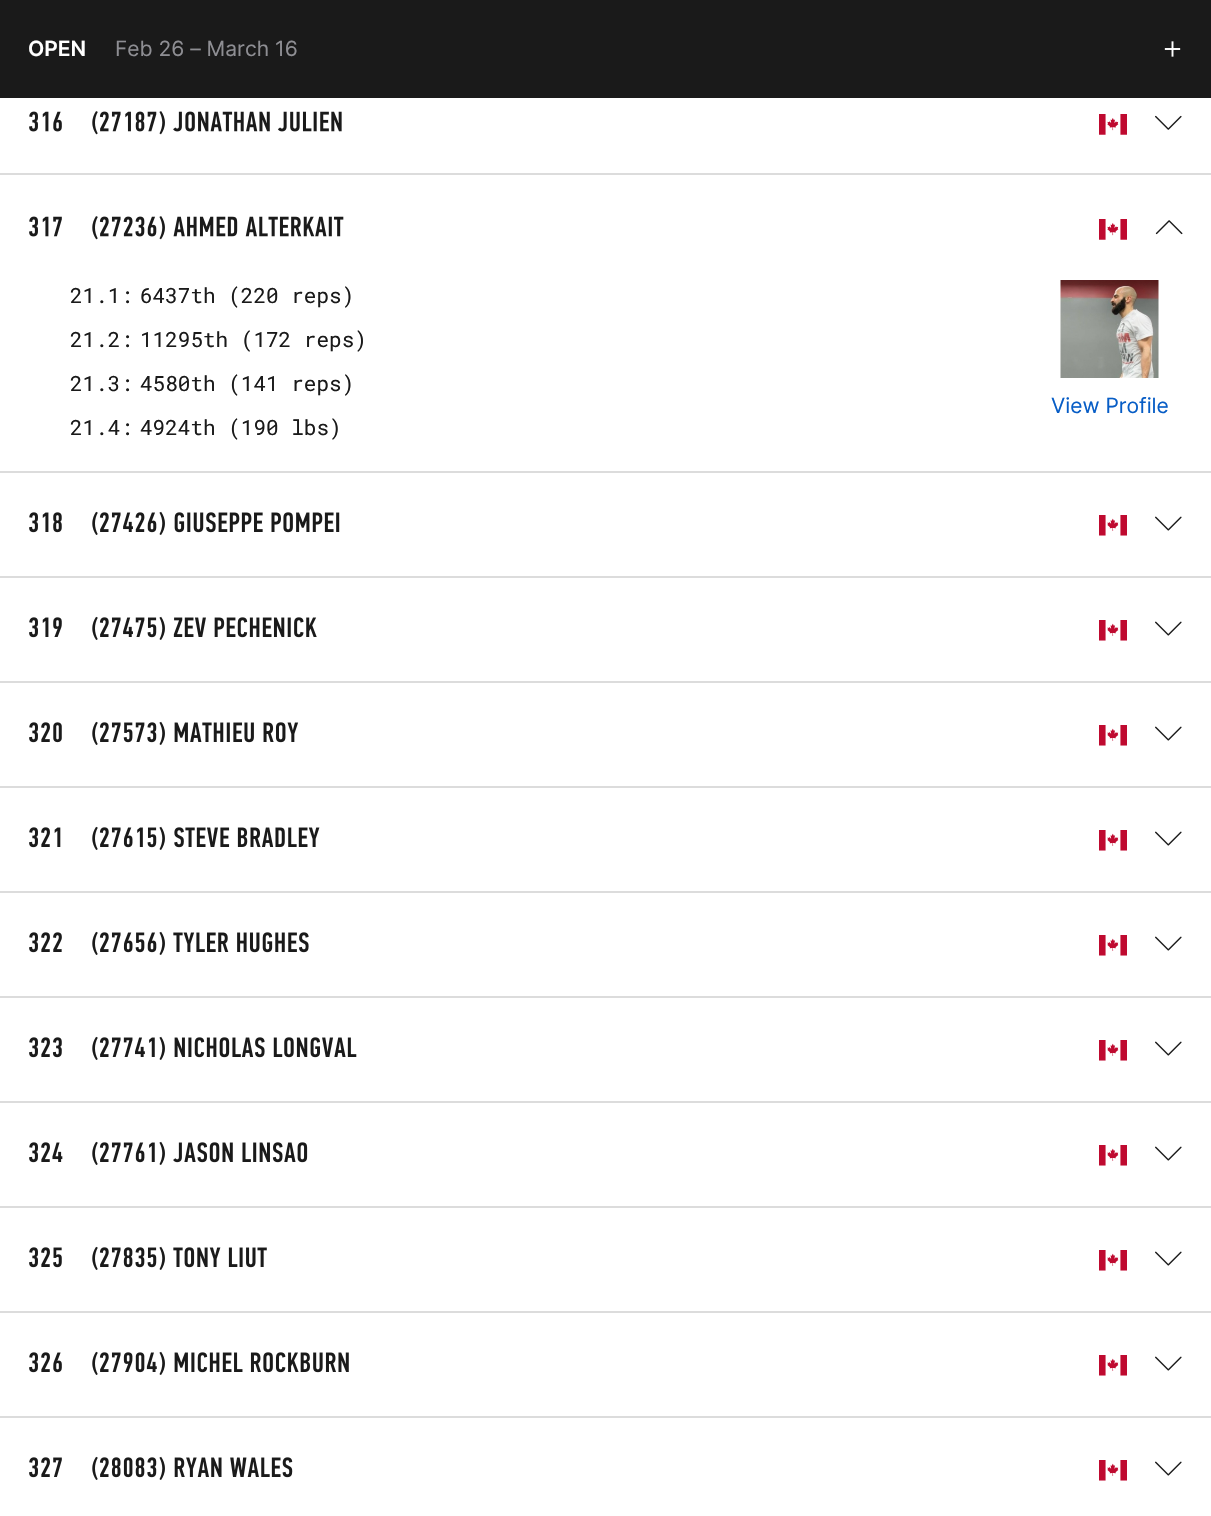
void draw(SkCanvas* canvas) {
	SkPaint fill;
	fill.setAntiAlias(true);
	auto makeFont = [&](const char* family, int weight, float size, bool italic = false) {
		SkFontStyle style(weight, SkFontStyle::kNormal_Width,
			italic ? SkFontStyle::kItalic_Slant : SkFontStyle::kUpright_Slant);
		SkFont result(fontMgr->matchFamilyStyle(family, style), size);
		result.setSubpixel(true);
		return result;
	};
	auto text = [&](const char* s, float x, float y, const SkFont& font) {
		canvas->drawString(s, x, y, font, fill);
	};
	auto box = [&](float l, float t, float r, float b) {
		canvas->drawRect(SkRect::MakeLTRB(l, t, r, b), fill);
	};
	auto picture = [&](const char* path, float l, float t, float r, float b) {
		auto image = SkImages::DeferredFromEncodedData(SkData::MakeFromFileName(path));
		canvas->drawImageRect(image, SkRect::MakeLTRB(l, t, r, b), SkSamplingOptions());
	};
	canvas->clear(0xFFFFFFFF);
	fill.setColor(0xFF1A1A1A);
	box(0, 0, 1211, 98);
	picture("image0.png", 1164, 41, 1181, 57);
	fill.setColor(0xFFDCDCDC);
	box(0, 173, 1211, 175);
	picture("image1.png", 29, 111, 62, 132);
	picture("image2.png", 92, 111, 165, 135);
	picture("image3.png", 173, 111, 342, 132);
	picture("image4.png", 1099, 114, 1127, 135);
	picture("image5.png", 1155, 115, 1182, 130);
	picture("image6.png", 29, 216, 62, 237);
	picture("image7.png", 92, 216, 165, 240);
	picture("image8.png", 173, 216, 344, 237);
	picture("image4.png", 1099, 219, 1127, 240);
	picture("image9.png", 1155, 220, 1183, 235);
	box(0, 471, 1211, 473);
	picture("image10.png", 1060, 280, 1159, 378);
	box(0, 576, 1211, 578);
	picture("image11.png", 29, 512, 62, 533);
	picture("image12.png", 92, 511, 165, 535);
	picture("image13.png", 174, 512, 340, 533);
	picture("image14.png", 1099, 515, 1127, 536);
	picture("image15.png", 1155, 516, 1182, 531);
	box(0, 681, 1211, 683);
	picture("image16.png", 29, 617, 62, 638);
	picture("image17.png", 92, 616, 165, 640);
	picture("image18.png", 173, 617, 317, 638);
	picture("image14.png", 1099, 620, 1127, 641);
	picture("image15.png", 1155, 621, 1182, 636);
	box(0, 786, 1211, 788);
	picture("image19.png", 29, 722, 62, 743);
	picture("image20.png", 92, 721, 165, 745);
	picture("image21.png", 174, 722, 299, 743);
	picture("image14.png", 1099, 725, 1127, 746);
	picture("image15.png", 1155, 726, 1182, 741);
	box(0, 891, 1211, 893);
	picture("image22.png", 29, 827, 61, 848);
	picture("image23.png", 92, 826, 165, 850);
	picture("image24.png", 174, 827, 320, 848);
	picture("image14.png", 1099, 830, 1127, 851);
	picture("image15.png", 1155, 831, 1182, 846);
	box(0, 996, 1211, 998);
	picture("image25.png", 29, 932, 62, 953);
	picture("image26.png", 92, 931, 165, 955);
	picture("image27.png", 173, 932, 309, 953);
	picture("image14.png", 1099, 935, 1127, 956);
	picture("image15.png", 1155, 936, 1182, 951);
	box(0, 1101, 1211, 1103);
	picture("image28.png", 29, 1037, 62, 1058);
	picture("image29.png", 92, 1036, 165, 1060);
	picture("image30.png", 174, 1037, 357, 1058);
	picture("image14.png", 1099, 1040, 1127, 1061);
	picture("image15.png", 1155, 1041, 1182, 1056);
	box(0, 1206, 1211, 1208);
	picture("image31.png", 29, 1142, 63, 1163);
	picture("image32.png", 92, 1141, 165, 1165);
	picture("image33.png", 173, 1142, 308, 1163);
	picture("image14.png", 1099, 1145, 1127, 1166);
	picture("image15.png", 1155, 1146, 1182, 1161);
	box(0, 1311, 1211, 1313);
	picture("image34.png", 29, 1247, 62, 1268);
	picture("image35.png", 92, 1246, 165, 1270);
	picture("image36.png", 173, 1247, 267, 1268);
	picture("image14.png", 1099, 1250, 1127, 1271);
	picture("image15.png", 1155, 1251, 1182, 1266);
	box(0, 1416, 1211, 1418);
	picture("image37.png", 29, 1352, 62, 1373);
	picture("image38.png", 92, 1351, 165, 1375);
	picture("image39.png", 174, 1352, 349, 1373);
	picture("image14.png", 1099, 1355, 1127, 1376);
	picture("image15.png", 1155, 1356, 1182, 1371);
	picture("image40.png", 29, 1457, 62, 1478);
	picture("image41.png", 92, 1456, 165, 1480);
	picture("image42.png", 174, 1457, 293, 1478);
	picture("image14.png", 1099, 1460, 1127, 1481);
	picture("image15.png", 1155, 1461, 1182, 1476);
	auto font1 = makeFont("Inter", 600, 21);
	fill.setColor(0xFFFFFFFF);
	text("OPEN", 28, 56, font1);
	auto font2 = makeFont("Inter", 400, 21);
	fill.setColor(0xFF8E8E93);
	text("Feb 26 – March 16", 115, 56, font2);
	auto font3 = makeFont("Roboto Mono", 400, 21);
	fill.setColor(0xFF1A1A1A);
	text("21.1:", 70, 303, font3);
	text("6437th (220 reps)", 140, 303, font3);
	text("21.2:", 70, 347, font3);
	text("11295th (172 reps)", 140, 347, font3);
	text("21.3:", 70, 391, font3);
	text("4580th (141 reps)", 140, 391, font3);
	text("21.4:", 70, 435, font3);
	text("4924th (190 lbs)", 140, 435, font3);
	fill.setColor(0xFF075DC6);
	text("View Profile", 1051, 413, font2);
}
